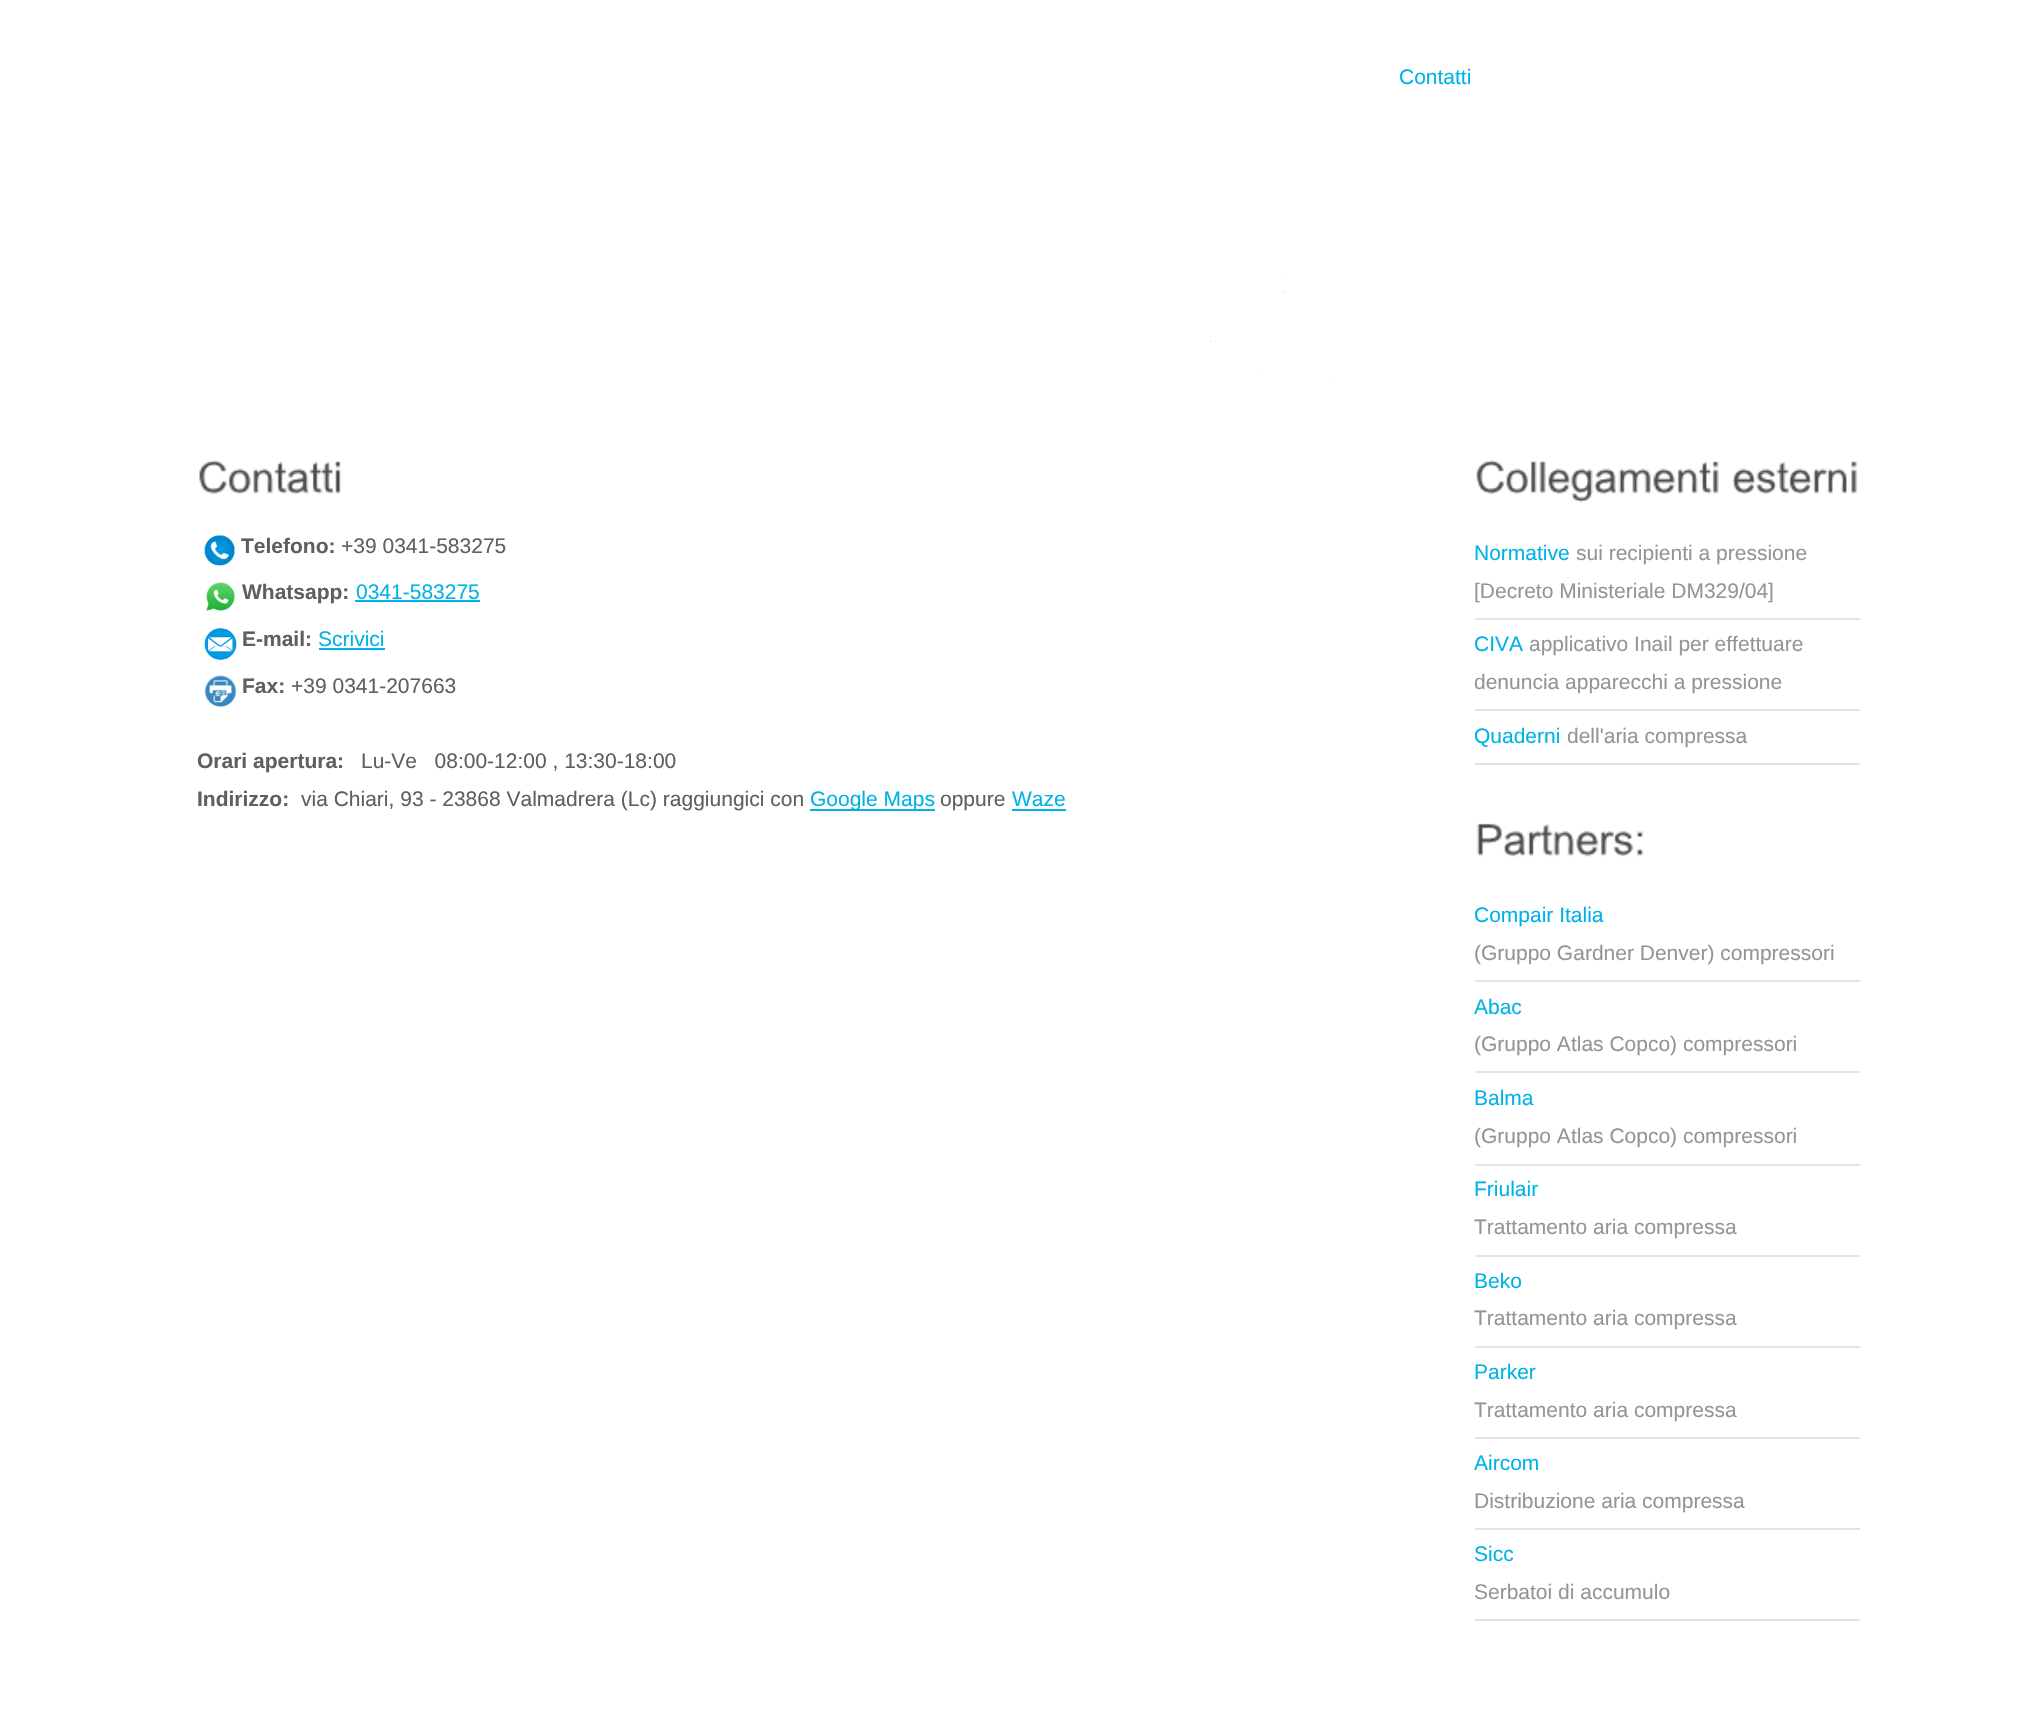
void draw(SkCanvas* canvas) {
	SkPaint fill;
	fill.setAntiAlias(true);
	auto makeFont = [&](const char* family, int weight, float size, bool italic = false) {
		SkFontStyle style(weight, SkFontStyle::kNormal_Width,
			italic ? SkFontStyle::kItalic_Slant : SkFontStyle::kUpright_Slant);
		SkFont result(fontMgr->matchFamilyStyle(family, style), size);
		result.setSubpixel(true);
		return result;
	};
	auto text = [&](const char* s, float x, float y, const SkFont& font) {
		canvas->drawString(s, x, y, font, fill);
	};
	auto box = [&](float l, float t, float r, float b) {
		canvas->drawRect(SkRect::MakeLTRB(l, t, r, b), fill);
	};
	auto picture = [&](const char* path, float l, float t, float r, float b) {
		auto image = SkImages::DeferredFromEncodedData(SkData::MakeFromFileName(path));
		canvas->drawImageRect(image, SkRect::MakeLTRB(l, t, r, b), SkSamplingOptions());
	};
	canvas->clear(0xFFFFFFFF);
	picture("image0.png", 1210, 273, 1337, 380);
	picture("image1.png", 199, 460, 342, 494);
	picture("image2.png", 204, 535, 235, 566);
	picture("image3.png", 206, 582, 235, 611);
	fill.setColor(0xFF00B2E8);
	box(355, 600, 480, 602);
	picture("image4.png", 204, 628, 237, 660);
	box(319, 648, 385, 650);
	picture("image5.png", 204, 675, 237, 707);
	box(810, 809, 935, 811);
	box(1012, 809, 1066, 811);
	picture("image6.png", 1476, 460, 1719, 503);
	picture("image7.png", 1732, 461, 1858, 494);
	fill.setColor(0xFFE3E3E3);
	box(1475, 618, 1860, 620);
	box(1475, 709, 1860, 711);
	box(1475, 763, 1860, 765);
	picture("image8.png", 1476, 823, 1644, 857);
	box(1475, 980, 1860, 982);
	box(1475, 1071, 1860, 1073);
	box(1475, 1164, 1860, 1166);
	box(1475, 1255, 1860, 1257);
	box(1475, 1346, 1860, 1348);
	box(1475, 1437, 1860, 1439);
	box(1475, 1528, 1860, 1530);
	box(1475, 1619, 1860, 1621);
	auto font1 = makeFont("Liberation Sans", 400, 21);
	fill.setColor(0xFF00B2E8);
	text("Contatti", 1399, 84, font1);
	auto font2 = makeFont("Liberation Sans", 700, 21);
	fill.setColor(0xFF5F5F5F);
	text("Telefono:", 241, 553, font2);
	text("+39 0341-583275", 341, 553, font1);
	text("Whatsapp:", 242, 599, font2);
	fill.setColor(0xFF00B2E8);
	text("0341-583275", 356, 599, font1);
	fill.setColor(0xFF5F5F5F);
	text("E-mail:", 242, 646, font2);
	fill.setColor(0xFF00B2E8);
	text("Scrivici", 318, 646, font1);
	fill.setColor(0xFF5F5F5F);
	text("Fax:", 242, 693, font2);
	text("+39 0341-207663", 291, 693, font1);
	text("Orari apertura:", 197, 768, font2);
	text("Lu-Ve   08:00-12:00 , 13:30-18:00", 361, 768, font1);
	text("Indirizzo:", 197, 806, font2);
	text("via Chiari, 93 - 23868 Valmadrera (Lc) raggiungici con", 301, 806, font1);
	fill.setColor(0xFF00B2E8);
	text("Google Maps", 810, 806, font1);
	fill.setColor(0xFF5F5F5F);
	text("oppure", 940, 806, font1);
	fill.setColor(0xFF00B2E8);
	text("Waze", 1012, 806, font1);
	text("Normative", 1474, 560, font1);
	fill.setColor(0xFF959595);
	text("sui recipienti a pressione", 1576, 560, font1);
	text("[Decreto Ministeriale DM329/04]", 1474, 598, font1);
	fill.setColor(0xFF00B2E8);
	text("CIVA", 1474, 651, font1);
	fill.setColor(0xFF959595);
	text("applicativo Inail per effettuare", 1529, 651, font1);
	text("denuncia apparecchi a pressione", 1474, 689, font1);
	fill.setColor(0xFF00B2E8);
	text("Quaderni", 1474, 743, font1);
	fill.setColor(0xFF959595);
	text("dell'aria compressa", 1567, 743, font1);
	fill.setColor(0xFF00B2E8);
	text("Compair Italia", 1474, 922, font1);
	fill.setColor(0xFF959595);
	text("(Gruppo Gardner Denver) compressori", 1474, 960, font1);
	fill.setColor(0xFF00B2E8);
	text("Abac", 1474, 1014, font1);
	fill.setColor(0xFF959595);
	text("(Gruppo Atlas Copco) compressori", 1474, 1051, font1);
	fill.setColor(0xFF00B2E8);
	text("Balma", 1474, 1105, font1);
	fill.setColor(0xFF959595);
	text("(Gruppo Atlas Copco) compressori", 1474, 1143, font1);
	fill.setColor(0xFF00B2E8);
	text("Friulair", 1474, 1196, font1);
	fill.setColor(0xFF959595);
	text("Trattamento aria compressa", 1474, 1234, font1);
	fill.setColor(0xFF00B2E8);
	text("Beko", 1474, 1288, font1);
	fill.setColor(0xFF959595);
	text("Trattamento aria compressa", 1474, 1325, font1);
	fill.setColor(0xFF00B2E8);
	text("Parker", 1474, 1379, font1);
	fill.setColor(0xFF959595);
	text("Trattamento aria compressa", 1474, 1417, font1);
	fill.setColor(0xFF00B2E8);
	text("Aircom", 1474, 1470, font1);
	fill.setColor(0xFF959595);
	text("Distribuzione aria compressa", 1474, 1508, font1);
	fill.setColor(0xFF00B2E8);
	text("Sicc", 1474, 1561, font1);
	fill.setColor(0xFF959595);
	text("Serbatoi di accumulo", 1474, 1599, font1);
}
